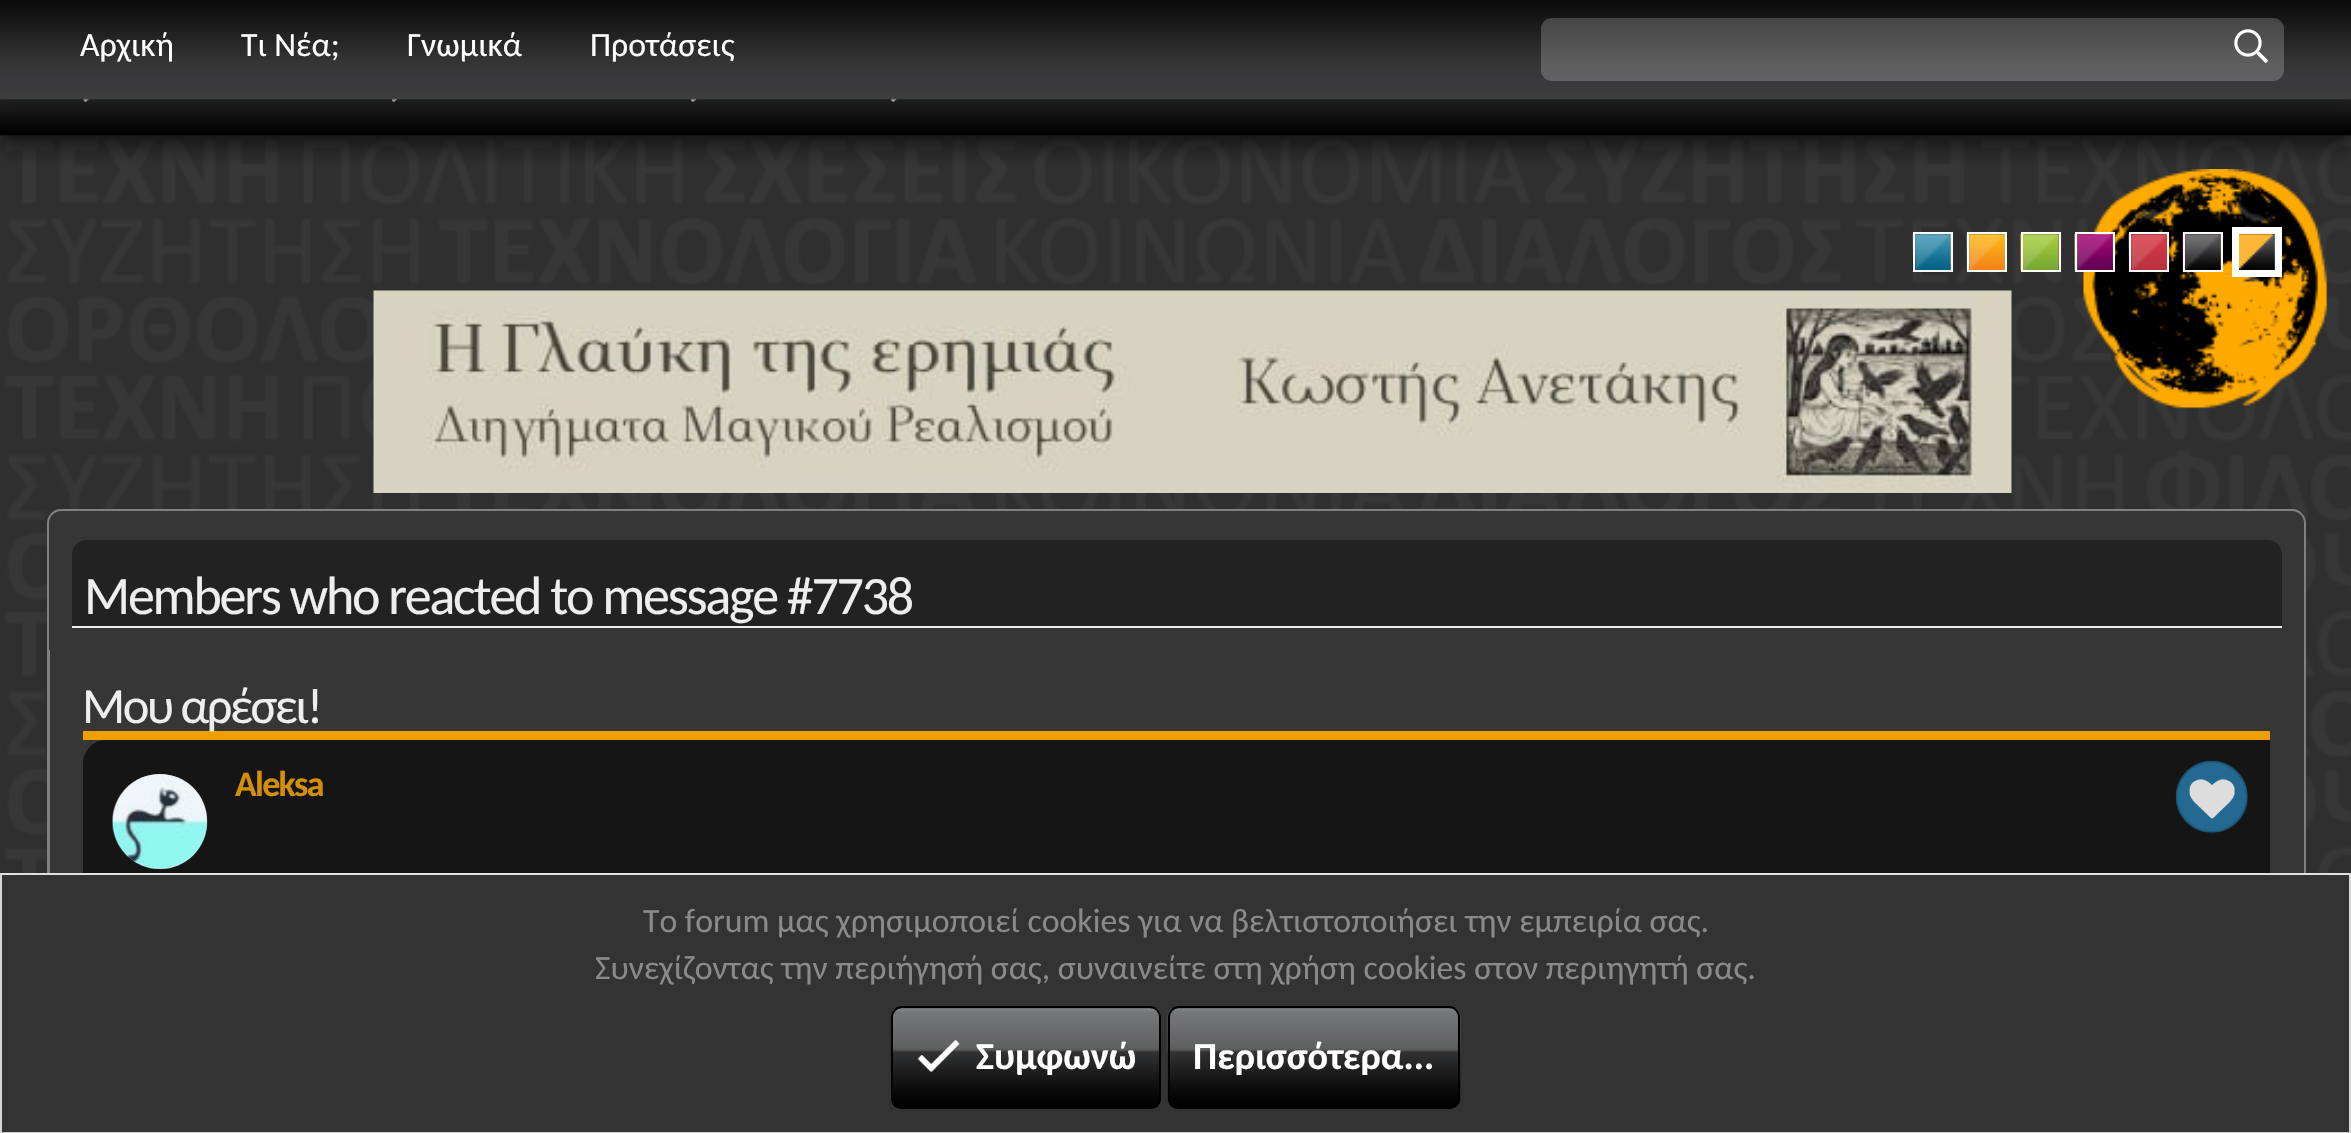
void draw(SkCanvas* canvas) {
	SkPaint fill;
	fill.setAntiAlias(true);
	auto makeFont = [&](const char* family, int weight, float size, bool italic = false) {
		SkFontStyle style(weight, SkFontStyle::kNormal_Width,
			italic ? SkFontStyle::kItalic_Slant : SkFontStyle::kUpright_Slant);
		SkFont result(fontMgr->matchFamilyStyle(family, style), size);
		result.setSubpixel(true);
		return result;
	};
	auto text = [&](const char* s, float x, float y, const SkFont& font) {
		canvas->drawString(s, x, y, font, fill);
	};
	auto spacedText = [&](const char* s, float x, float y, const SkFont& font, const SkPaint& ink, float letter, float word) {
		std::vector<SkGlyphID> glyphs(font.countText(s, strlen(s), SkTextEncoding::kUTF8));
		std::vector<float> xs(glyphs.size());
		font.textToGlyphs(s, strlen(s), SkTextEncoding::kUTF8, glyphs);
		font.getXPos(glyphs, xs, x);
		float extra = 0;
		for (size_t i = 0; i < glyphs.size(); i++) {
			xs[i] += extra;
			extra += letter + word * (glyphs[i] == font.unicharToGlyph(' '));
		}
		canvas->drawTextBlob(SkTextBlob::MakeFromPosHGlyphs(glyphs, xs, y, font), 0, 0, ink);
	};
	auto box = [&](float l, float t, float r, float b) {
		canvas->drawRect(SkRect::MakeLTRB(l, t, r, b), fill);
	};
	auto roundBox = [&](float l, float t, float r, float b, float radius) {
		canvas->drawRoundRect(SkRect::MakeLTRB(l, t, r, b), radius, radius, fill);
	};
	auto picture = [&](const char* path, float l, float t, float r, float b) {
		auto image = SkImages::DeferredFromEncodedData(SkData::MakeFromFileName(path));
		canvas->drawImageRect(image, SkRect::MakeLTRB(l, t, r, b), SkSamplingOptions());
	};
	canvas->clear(0xFFFFFFFF);
	picture("image0.png", 0, 135, 2351, 873);
	fill.setColor(0x80000000);
	fill.setMaskFilter(SkMaskFilter::MakeBlur(kNormal_SkBlurStyle, 9));
	canvas->drawRect(SkRect::MakeLTRB(0, 70, 2351, 149), fill);
	fill.setMaskFilter(nullptr);
	picture("image3.png", 0, 99, 2351, 136);
	picture("image4.png", 83, 99, 89, 102);
	picture("image5.png", 392, 99, 398, 102);
	picture("image6.png", 691, 99, 697, 102);
	picture("image7.png", 891, 99, 897, 102);
	fill.setColor(0x4D000000);
	fill.setMaskFilter(SkMaskFilter::MakeBlur(kNormal_SkBlurStyle, 9));
	canvas->drawRect(SkRect::MakeLTRB(-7, -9, 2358, 106), fill);
	fill.setMaskFilter(nullptr);
	picture("image1.png", 0, 0, 2351, 100);
	fill.setColor(0x33FFFFFF);
	roundBox(1541, 18, 2284, 81, 11);
	picture("image2.png", 2234, 29, 2268, 63);
	picture("image8.png", 2083, 169, 2328, 409);
	picture("image9.png", 1912, 234, 1951, 271);
	fill.setStyle(SkPaint::kStroke_Style);
	fill.setStrokeWidth(2);
	fill.setColor(0xFFFFFFFF);
	canvas->drawRect(SkRect::MakeLTRB(1914, 233, 1952, 271), fill);
	picture("image10.png", 1966, 234, 2005, 271);
	canvas->drawRect(SkRect::MakeLTRB(1968, 233, 2006, 271), fill);
	picture("image11.png", 2020, 234, 2059, 271);
	canvas->drawRect(SkRect::MakeLTRB(2022, 233, 2060, 271), fill);
	picture("image12.png", 2074, 234, 2113, 271);
	canvas->drawRect(SkRect::MakeLTRB(2076, 233, 2114, 271), fill);
	picture("image13.png", 2128, 234, 2167, 271);
	canvas->drawRect(SkRect::MakeLTRB(2130, 233, 2168, 271), fill);
	picture("image14.png", 2182, 234, 2221, 271);
	canvas->drawRect(SkRect::MakeLTRB(2184, 233, 2222, 271), fill);
	picture("image15.png", 2239, 234, 2275, 270);
	fill.setStrokeWidth(7);
	canvas->drawRect(SkRect::MakeLTRB(2235.5f, 230.5f, 2278.5f, 273.5f), fill);
	picture("image16.png", 373, 290, 2012, 493);
	fill.setStyle(SkPaint::kFill_Style);
	fill.setColor(0xFF363636);
	canvas->drawPath(SkPathBuilder().moveTo(61, 510).lineTo(2292, 510).cubicTo(2299, 510, 2305, 516, 2305, 523).lineTo(2305, 658).lineTo(48, 658).lineTo(48, 523).cubicTo(48, 516, 54, 510, 61, 510).close().detach(), fill);
	fill.setStyle(SkPaint::kStroke_Style);
	fill.setStrokeWidth(2);
	fill.setColor(0xFF828181);
	canvas->drawPath(SkPathBuilder().moveTo(61, 510).lineTo(2292, 510).cubicTo(2299, 510, 2305, 516, 2305, 523).lineTo(2305, 658).lineTo(48, 658).lineTo(48, 523).cubicTo(48, 516, 54, 510, 61, 510).close().detach(), fill);
	fill.setStyle(SkPaint::kFill_Style);
	fill.setColor(0xFF222222);
	canvas->drawPath(SkPathBuilder().moveTo(86, 540).lineTo(2268, 540).cubicTo(2275.5f, 540, 2282, 546.5f, 2282, 554).lineTo(2282, 628).lineTo(72, 628).lineTo(72, 554).cubicTo(72, 546.5f, 78.5f, 540, 86, 540).close().detach(), fill);
	fill.setColor(0xFFEEEEEE);
	box(72, 626, 2282, 628);
	fill.setColor(0xFF363636);
	box(50, 657, 2304, 873);
	fill.setColor(0xFF828181);
	canvas->drawPath(SkPathBuilder(SkPathFillType::kEvenOdd).moveTo(47, 650).lineTo(2306, 650).lineTo(2306, 938).cubicTo(2306, 951, 2296, 961, 2284, 961).lineTo(70, 961).cubicTo(57, 961, 47, 951, 47, 938).close().moveTo(50, 650).lineTo(2304, 650).lineTo(2304, 938).cubicTo(2304, 949, 2295, 958, 2284, 958).lineTo(70, 958).cubicTo(59, 958, 50, 949, 50, 938).close().detach(), fill);
	fill.setColor(0xFFEF9F00);
	box(83, 731, 2270, 740);
	fill.setColor(0xFF151515);
	canvas->drawPath(SkPathBuilder().moveTo(106, 740).lineTo(2270, 740).lineTo(2270, 902).lineTo(83, 902).lineTo(83, 763).cubicTo(83, 750.5f, 93.5f, 740, 106, 740).close().detach(), fill);
	fill.setColor(0xFFE1E1E1);
	roundBox(113, 774, 207, 869, 47);
	picture("image17.png", 112, 774, 208, 869);
	picture("image18.png", 2175, 760, 2248, 833);
	fill.setColor(0xFF333333);
	box(2, 875, 2349, 1132);
	fill.setColor(0xFFE0E0E0);
	box(0, 873, 2351, 875);
	fill.setColor(0xFFD6D6D6);
	box(2349, 873, 2351, 1133);
	fill.setColor(0xFFCCCCCC);
	box(0, 1132, 2351, 1133);
	fill.setColor(0xFFD6D6D6);
	box(0, 873, 2, 1133);
	picture("image19.png", 891, 1008, 1161, 1108);
	fill.setStyle(SkPaint::kStroke_Style);
	fill.setColor(0xFF000000);
	canvas->drawRoundRect(SkRect::MakeLTRB(892, 1007, 1160, 1108), 10, 10, fill);
	picture("image20.png", 917, 1040, 960, 1072);
	picture("image21.png", 1167, 1008, 1461, 1108);
	canvas->drawRoundRect(SkRect::MakeLTRB(1169, 1007, 1459, 1108), 10, 10, fill);
	auto font1 = makeFont("Carlito", 400, 33.75f);
	fill.setStyle(SkPaint::kFill_Style);
	fill.setColor(0xFFFFFFFF);
	text("Αρχική", 80, 56, font1);
	text("Τι Νέα;", 241, 56, font1);
	text("Γνωμικά", 407, 56, font1);
	text("Προτάσεις", 590, 56, font1);
	auto font2 = makeFont("Carlito", 400, 54);
	fill.setColor(0xFFEEEEEE);
	spacedText("Members who reacted to message #7738", 84, 614, font2, fill, -2.25f, 0);
	auto font3 = makeFont("Carlito", 400, 50.5f);
	spacedText("Μου αρέσει!", 82, 723, font3, fill, -2.5f, 0);
	auto font4 = makeFont("Carlito", 700, 36);
	fill.setColor(0xFFD38F08);
	spacedText("Aleksa", 235, 796, font4, fill, -1.75f, 0);
	fill.setColor(0xFF8A8A8A);
	text("Το forum μας χρησιμοποιεί cookies για να βελτιστοποιήσει την εμπειρία σας.", 643, 932, font1);
	text("Συνεχίζοντας την περιήγησή σας, συναινείτε στη χρήση cookies στον περιηγητή σας.", 595, 979, font1);
	auto font5 = makeFont("Carlito", 700, 38.25f);
	fill.setColor(0xFFFFFFFF);
	text("Συμφωνώ", 976, 1069, font5);
	text("Περισσότερα...", 1193, 1069, font5);
}
